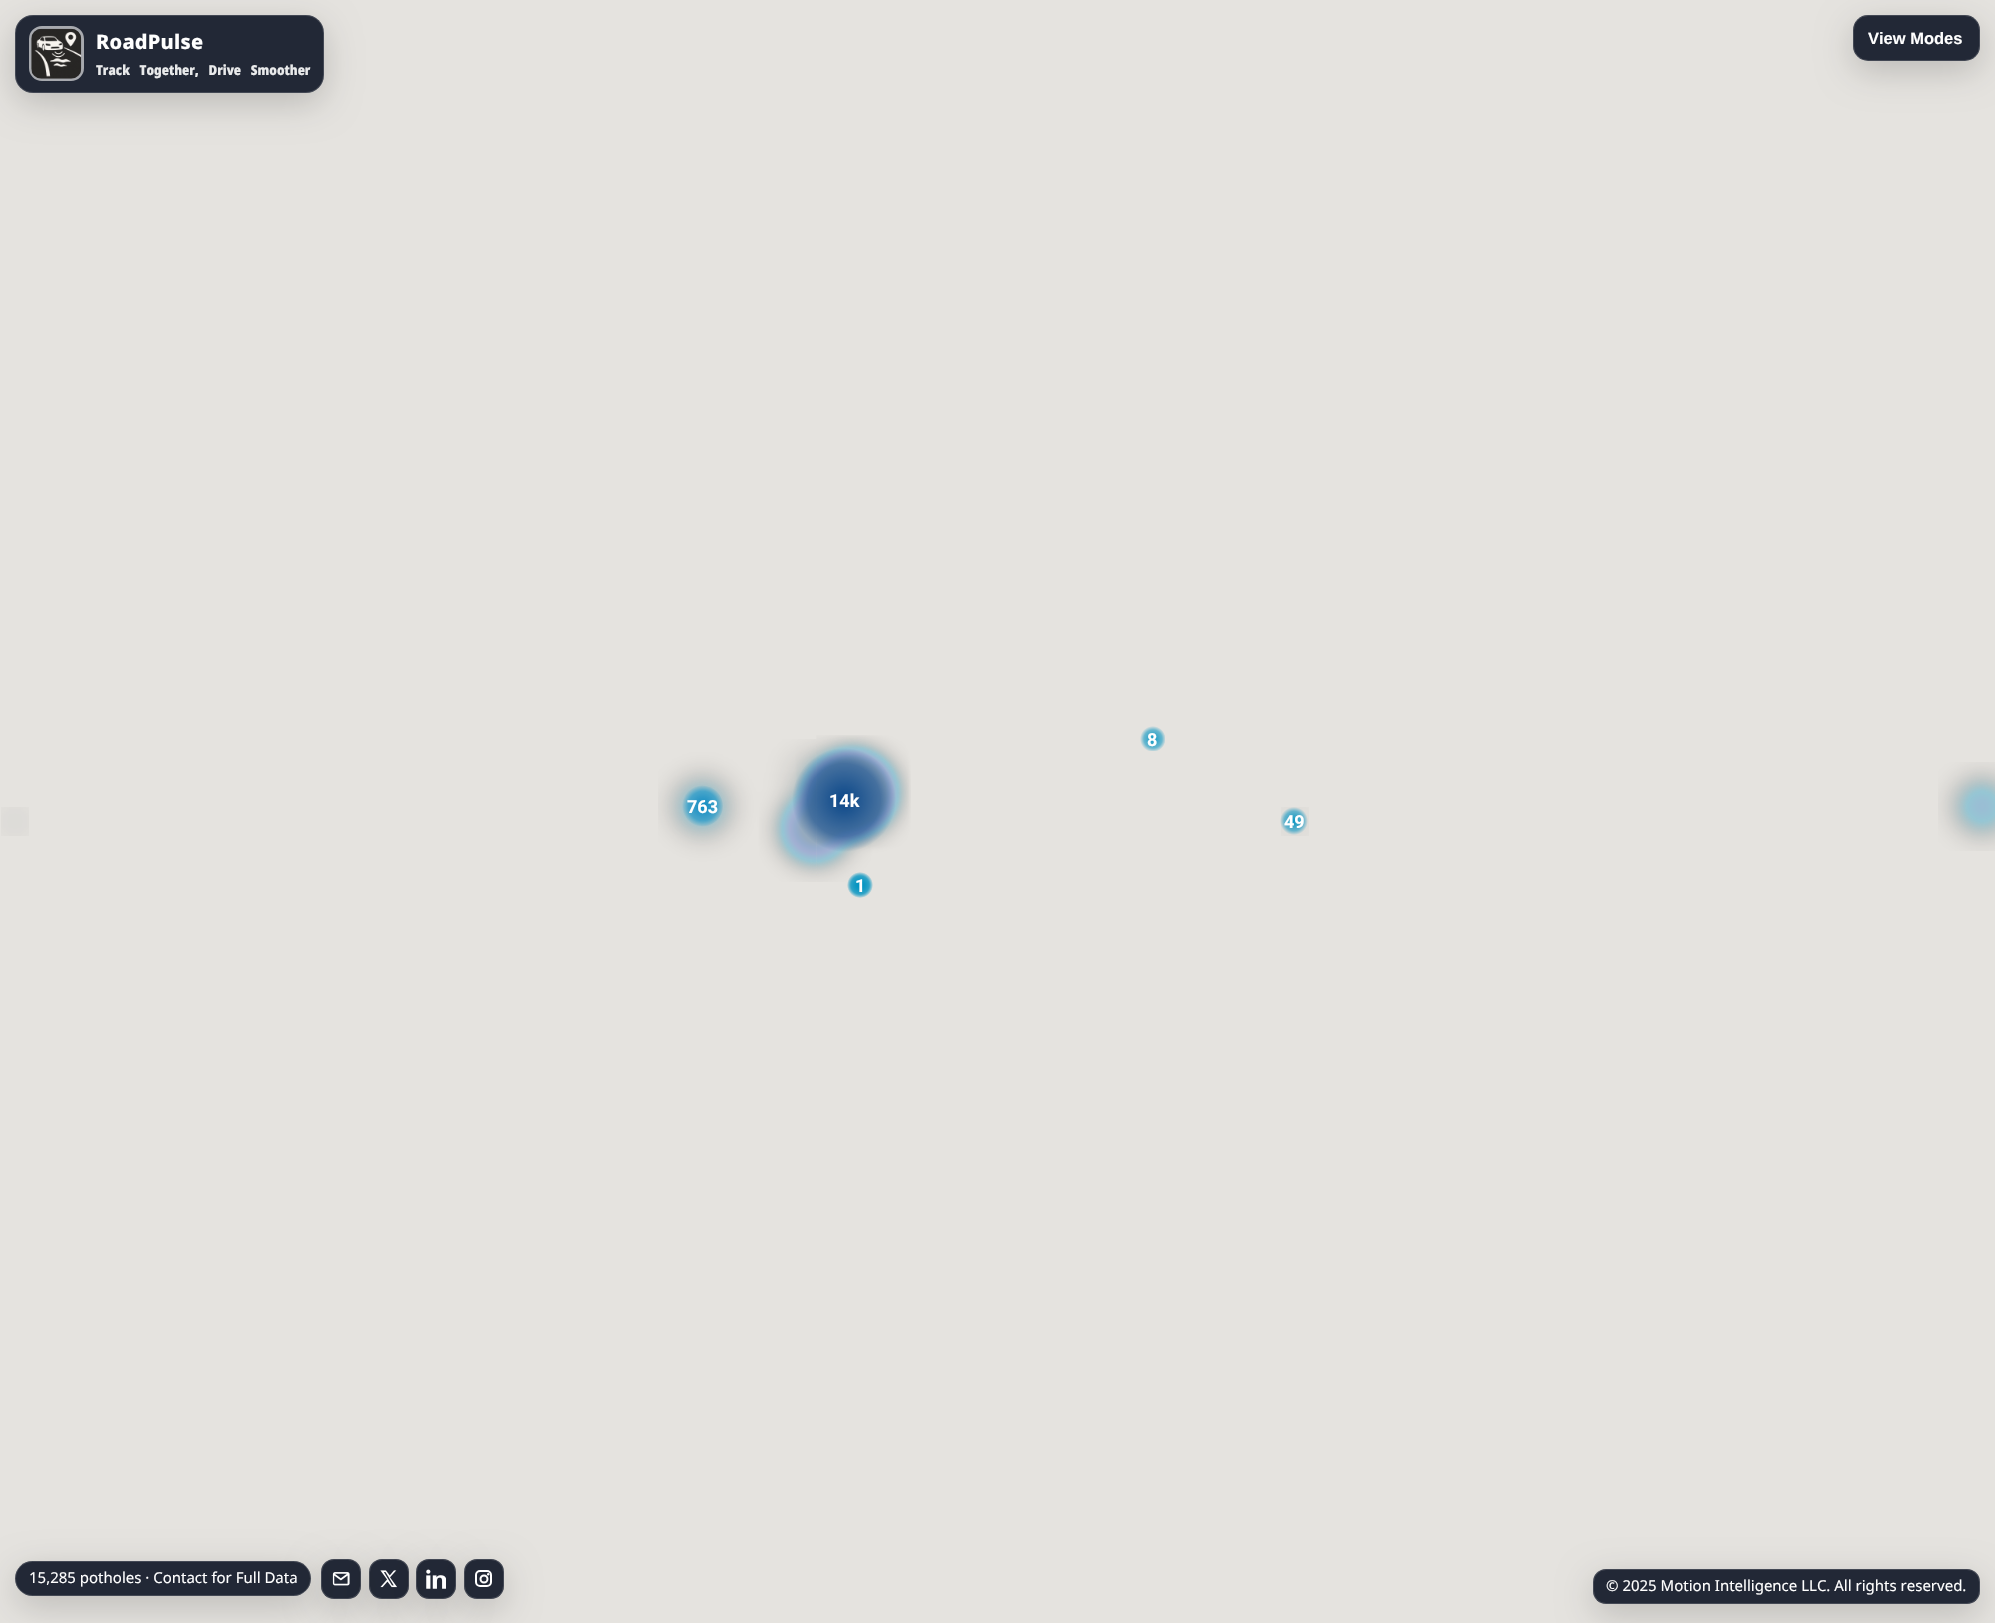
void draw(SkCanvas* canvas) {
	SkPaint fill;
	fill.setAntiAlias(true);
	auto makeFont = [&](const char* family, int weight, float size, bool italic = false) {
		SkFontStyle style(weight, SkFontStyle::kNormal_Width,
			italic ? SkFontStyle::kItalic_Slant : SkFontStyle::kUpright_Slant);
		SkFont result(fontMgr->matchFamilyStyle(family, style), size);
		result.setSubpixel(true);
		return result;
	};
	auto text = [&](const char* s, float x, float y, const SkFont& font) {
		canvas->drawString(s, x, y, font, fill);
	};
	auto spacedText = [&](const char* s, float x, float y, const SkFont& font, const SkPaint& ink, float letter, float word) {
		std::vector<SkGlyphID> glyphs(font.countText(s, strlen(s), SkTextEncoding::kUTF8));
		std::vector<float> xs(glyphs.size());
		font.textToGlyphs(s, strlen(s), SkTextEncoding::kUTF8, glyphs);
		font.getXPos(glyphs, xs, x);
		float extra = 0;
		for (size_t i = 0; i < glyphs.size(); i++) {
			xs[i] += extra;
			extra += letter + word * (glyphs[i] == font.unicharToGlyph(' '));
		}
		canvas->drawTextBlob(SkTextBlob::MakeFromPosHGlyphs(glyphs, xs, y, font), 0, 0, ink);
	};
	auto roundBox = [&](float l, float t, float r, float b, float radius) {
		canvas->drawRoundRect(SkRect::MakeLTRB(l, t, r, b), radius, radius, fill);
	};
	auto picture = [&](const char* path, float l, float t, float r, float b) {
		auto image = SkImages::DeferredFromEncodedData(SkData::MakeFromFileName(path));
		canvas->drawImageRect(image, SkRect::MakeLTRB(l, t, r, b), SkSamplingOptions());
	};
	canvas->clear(0xFFE5E3DF);
	canvas->save();
	canvas->clipPath(SkPathBuilder(SkPathFillType::kEvenOdd).moveTo(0, 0).lineTo(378, 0).lineTo(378, 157).lineTo(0, 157).close().moveTo(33, 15).lineTo(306, 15).cubicTo(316, 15, 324, 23, 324, 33).lineTo(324, 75).cubicTo(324, 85, 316, 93, 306, 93).lineTo(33, 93).cubicTo(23, 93, 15, 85, 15, 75).lineTo(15, 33).cubicTo(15, 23, 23, 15, 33, 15).close().detach(), true);
	fill.setColor(0x2E000000);
	fill.setMaskFilter(SkMaskFilter::MakeBlur(kNormal_SkBlurStyle, 17.5f));
	canvas->drawRoundRect(SkRect::MakeLTRB(15, 25, 324, 103), 18, 18, fill);
	fill.setMaskFilter(nullptr);
	canvas->restore();
	fill.setColor(0xEB111827);
	roundBox(15, 15, 324, 93, 18);
	fill.setStyle(SkPaint::kStroke_Style);
	fill.setStrokeWidth(1);
	fill.setColor(0x26FFFFFF);
	canvas->drawRoundRect(SkRect::MakeLTRB(15.5f, 15.5f, 323.5f, 92.5f), 17.5f, 17.5f, fill);
	fill.setStrokeWidth(3);
	fill.setColor(0xFFA7A9AE);
	canvas->drawRoundRect(SkRect::MakeLTRB(30.5f, 27.5f, 82.5f, 79.5f), 11.5f, 11.5f, fill);
	picture("image0.png", 31, 28, 82, 79);
	canvas->save();
	canvas->clipPath(SkPathBuilder(SkPathFillType::kEvenOdd).moveTo(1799, 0).lineTo(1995, 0).lineTo(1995, 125).lineTo(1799, 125).close().moveTo(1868, 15).lineTo(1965, 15).cubicTo(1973.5f, 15, 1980, 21.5f, 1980, 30).lineTo(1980, 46).cubicTo(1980, 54.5f, 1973.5f, 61, 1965, 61).lineTo(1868, 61).cubicTo(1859.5f, 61, 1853, 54.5f, 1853, 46).lineTo(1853, 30).cubicTo(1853, 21.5f, 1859.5f, 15, 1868, 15).close().detach(), true);
	fill.setStyle(SkPaint::kFill_Style);
	fill.setColor(0x2E000000);
	fill.setMaskFilter(SkMaskFilter::MakeBlur(kNormal_SkBlurStyle, 17.5f));
	canvas->drawRoundRect(SkRect::MakeLTRB(1853, 25, 1980, 71), 15, 15, fill);
	fill.setMaskFilter(nullptr);
	canvas->restore();
	fill.setColor(0xEB111827);
	roundBox(1853, 15, 1980, 61, 15);
	fill.setStyle(SkPaint::kStroke_Style);
	fill.setStrokeWidth(1);
	fill.setColor(0x26FFFFFF);
	canvas->drawRoundRect(SkRect::MakeLTRB(1853.5f, 15.5f, 1979.5f, 60.5f), 14.5f, 14.5f, fill);
	canvas->save();
	canvas->clipRect(SkRect::MakeLTRB(1139, 725, 1165, 751));
	fill.setStyle(SkPaint::kFill_Style);
	{
		const SkColor colors[] = {0xFF0B97C3, 0xFF67B7CF, 0xFFE5E3DF};
		const float stops[] = {0, 0.7f, 1};
		fill.setShader(SkGradientShader::MakeRadial({1153, 739}, 13, colors, stops, 3, SkTileMode::kClamp));
		fill.setAlpha(255);
	}
	canvas->drawCircle(1152.5f, 739, 13, fill);
	canvas->restore();
	picture("image3.png", 816, 735, 911, 882);
	picture("image2.png", 658, 739, 817, 882);
	{
		const SkColor colors[] = {0xF20689C1, 0x8C0689C1, 0x000689C1};
		const float stops[] = {0, 0.7f, 1};
		fill.setShader(SkGradientShader::MakeRadial({703, 806}, 21, colors, stops, 3, SkTileMode::kClamp));
		fill.setAlpha(255);
	}
	canvas->drawCircle(702.5f, 806, 20.5f, fill);
	{
		const SkColor colors[] = {0xF2034185, 0x8C034185, 0x00034185};
		const float stops[] = {0, 0.7f, 1};
		fill.setShader(SkGradientShader::MakeRadial({844, 800}, 52, colors, stops, 3, SkTileMode::kClamp));
		fill.setAlpha(255);
	}
	canvas->drawCircle(844, 800, 52, fill);
	picture("image1.png", 1281, 807, 1309, 836);
	{
		const SkColor colors[] = {0xF20092C1, 0x8C0092C1, 0x000092C1};
		const float stops[] = {0, 0.7f, 1};
		fill.setShader(SkGradientShader::MakeRadial({1294, 821}, 14, colors, stops, 3, SkTileMode::kClamp));
		fill.setAlpha(255);
	}
	canvas->drawCircle(1294, 821, 14.5f, fill);
	{
		const SkColor colors[] = {0xFF0B97C2, 0xFF67B7CE, 0xFFE5E3DF};
		const float stops[] = {0, 0.7f, 1};
		fill.setShader(SkGradientShader::MakeRadial({860, 885}, 13, colors, stops, 3, SkTileMode::kClamp));
		fill.setAlpha(255);
	}
	canvas->drawCircle(860, 885, 13, fill);
	{
		const SkColor colors[] = {0xF20093C1, 0x8C0093C1, 0x000093C1};
		const float stops[] = {0, 0.7f, 1};
		fill.setShader(SkGradientShader::MakeRadial({860, 885}, 13, colors, stops, 3, SkTileMode::kClamp));
		fill.setAlpha(255);
	}
	canvas->drawCircle(860, 885, 13, fill);
	picture("image1.png", 1, 807, 29, 836);
	picture("image4.png", 1938, 762, 1995, 851);
	canvas->save();
	canvas->clipPath(SkPathBuilder(SkPathFillType::kEvenOdd).moveTo(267, 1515).lineTo(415, 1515).lineTo(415, 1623).lineTo(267, 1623).close().moveTo(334, 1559).lineTo(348, 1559).cubicTo(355, 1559, 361, 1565, 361, 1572).lineTo(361, 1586).cubicTo(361, 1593, 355, 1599, 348, 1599).lineTo(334, 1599).cubicTo(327, 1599, 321, 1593, 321, 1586).lineTo(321, 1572).cubicTo(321, 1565, 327, 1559, 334, 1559).close().detach(), true);
	fill.setShader(nullptr);
	fill.setColor(0x2E000000);
	fill.setMaskFilter(SkMaskFilter::MakeBlur(kNormal_SkBlurStyle, 17.5f));
	canvas->drawRoundRect(SkRect::MakeLTRB(321, 1569, 361, 1609), 13, 13, fill);
	fill.setMaskFilter(nullptr);
	canvas->restore();
	fill.setColor(0xEB111827);
	roundBox(321, 1559, 361, 1599, 13);
	fill.setStyle(SkPaint::kStroke_Style);
	fill.setColor(0x26FFFFFF);
	canvas->drawRoundRect(SkRect::MakeLTRB(321.5f, 1559.5f, 360.5f, 1598.5f), 12.5f, 12.5f, fill);
	canvas->save();
	canvas->clipPath(SkPathBuilder(SkPathFillType::kEvenOdd).moveTo(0, 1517).lineTo(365, 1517).lineTo(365, 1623).lineTo(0, 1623).close().moveTo(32.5f, 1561).lineTo(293.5f, 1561).cubicTo(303, 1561, 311, 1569, 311, 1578.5f).cubicTo(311, 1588, 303, 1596, 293.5f, 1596).lineTo(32.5f, 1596).cubicTo(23, 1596, 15, 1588, 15, 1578.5f).cubicTo(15, 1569, 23, 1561, 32.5f, 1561).close().detach(), true);
	fill.setStyle(SkPaint::kFill_Style);
	fill.setColor(0x2E000000);
	fill.setMaskFilter(SkMaskFilter::MakeBlur(kNormal_SkBlurStyle, 17.5f));
	canvas->drawRoundRect(SkRect::MakeLTRB(15, 1571, 311, 1606), 17.5f, 17.5f, fill);
	fill.setMaskFilter(nullptr);
	canvas->restore();
	fill.setColor(0xEB111827);
	roundBox(15, 1561, 311, 1596, 17.5f);
	fill.setStyle(SkPaint::kStroke_Style);
	fill.setColor(0x26FFFFFF);
	canvas->drawRoundRect(SkRect::MakeLTRB(15.5f, 1561.5f, 310.5f, 1595.5f), 17, 17, fill);
	canvas->save();
	canvas->clipPath(SkPathBuilder(SkPathFillType::kEvenOdd).moveTo(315, 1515).lineTo(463, 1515).lineTo(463, 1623).lineTo(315, 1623).close().moveTo(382, 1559).lineTo(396, 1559).cubicTo(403, 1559, 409, 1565, 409, 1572).lineTo(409, 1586).cubicTo(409, 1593, 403, 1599, 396, 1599).lineTo(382, 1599).cubicTo(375, 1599, 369, 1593, 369, 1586).lineTo(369, 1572).cubicTo(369, 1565, 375, 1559, 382, 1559).close().detach(), true);
	fill.setStyle(SkPaint::kFill_Style);
	fill.setColor(0x2E000000);
	fill.setMaskFilter(SkMaskFilter::MakeBlur(kNormal_SkBlurStyle, 17.5f));
	canvas->drawRoundRect(SkRect::MakeLTRB(369, 1569, 409, 1609), 13, 13, fill);
	fill.setMaskFilter(nullptr);
	canvas->restore();
	picture("image5.png", 332, 1572, 350, 1586);
	fill.setColor(0xEB111827);
	roundBox(369, 1559, 409, 1599, 13);
	fill.setStyle(SkPaint::kStroke_Style);
	fill.setColor(0x26FFFFFF);
	canvas->drawRoundRect(SkRect::MakeLTRB(369.5f, 1559.5f, 408.5f, 1598.5f), 12.5f, 12.5f, fill);
	canvas->save();
	canvas->clipPath(SkPathBuilder(SkPathFillType::kEvenOdd).moveTo(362, 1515).lineTo(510, 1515).lineTo(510, 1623).lineTo(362, 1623).close().moveTo(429, 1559).lineTo(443, 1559).cubicTo(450, 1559, 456, 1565, 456, 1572).lineTo(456, 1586).cubicTo(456, 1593, 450, 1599, 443, 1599).lineTo(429, 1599).cubicTo(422, 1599, 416, 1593, 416, 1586).lineTo(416, 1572).cubicTo(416, 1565, 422, 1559, 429, 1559).close().detach(), true);
	fill.setStyle(SkPaint::kFill_Style);
	fill.setColor(0x2E000000);
	fill.setMaskFilter(SkMaskFilter::MakeBlur(kNormal_SkBlurStyle, 17.5f));
	canvas->drawRoundRect(SkRect::MakeLTRB(416, 1569, 456, 1609), 13, 13, fill);
	fill.setMaskFilter(nullptr);
	canvas->restore();
	picture("image6.png", 380, 1570, 397, 1588);
	fill.setColor(0xEB111827);
	roundBox(416, 1559, 456, 1599, 13);
	fill.setStyle(SkPaint::kStroke_Style);
	fill.setColor(0x26FFFFFF);
	canvas->drawRoundRect(SkRect::MakeLTRB(416.5f, 1559.5f, 455.5f, 1598.5f), 12.5f, 12.5f, fill);
	canvas->save();
	canvas->clipPath(SkPathBuilder(SkPathFillType::kEvenOdd).moveTo(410, 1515).lineTo(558, 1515).lineTo(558, 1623).lineTo(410, 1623).close().moveTo(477, 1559).lineTo(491, 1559).cubicTo(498, 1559, 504, 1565, 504, 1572).lineTo(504, 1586).cubicTo(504, 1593, 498, 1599, 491, 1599).lineTo(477, 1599).cubicTo(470, 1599, 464, 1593, 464, 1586).lineTo(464, 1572).cubicTo(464, 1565, 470, 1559, 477, 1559).close().detach(), true);
	fill.setStyle(SkPaint::kFill_Style);
	fill.setColor(0x2E000000);
	fill.setMaskFilter(SkMaskFilter::MakeBlur(kNormal_SkBlurStyle, 17.5f));
	canvas->drawRoundRect(SkRect::MakeLTRB(464, 1569, 504, 1609), 13, 13, fill);
	fill.setMaskFilter(nullptr);
	canvas->restore();
	picture("image7.png", 426, 1569, 446, 1589);
	fill.setColor(0xEB111827);
	roundBox(464, 1559, 504, 1599, 13);
	fill.setStyle(SkPaint::kStroke_Style);
	fill.setColor(0x26FFFFFF);
	canvas->drawRoundRect(SkRect::MakeLTRB(464.5f, 1559.5f, 503.5f, 1598.5f), 12.5f, 12.5f, fill);
	fill.setStrokeWidth(2);
	fill.setColor(0xFFFFFFFF);
	canvas->drawRoundRect(SkRect::MakeLTRB(476, 1571, 491, 1586), 4, 4, fill);
	canvas->drawCircle(484, 1579, 3.5f, fill);
	fill.setStyle(SkPaint::kFill_Style);
	canvas->drawCircle(488.2f, 1574.3f, 1.2f, fill);
	canvas->save();
	canvas->clipPath(SkPathBuilder(SkPathFillType::kEvenOdd).moveTo(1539, 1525).lineTo(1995, 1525).lineTo(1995, 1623).lineTo(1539, 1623).close().moveTo(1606, 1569).lineTo(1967, 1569).cubicTo(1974, 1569, 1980, 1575, 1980, 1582).lineTo(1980, 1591).cubicTo(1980, 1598, 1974, 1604, 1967, 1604).lineTo(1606, 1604).cubicTo(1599, 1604, 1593, 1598, 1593, 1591).lineTo(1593, 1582).cubicTo(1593, 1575, 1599, 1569, 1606, 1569).close().detach(), true);
	fill.setColor(0x2E000000);
	fill.setMaskFilter(SkMaskFilter::MakeBlur(kNormal_SkBlurStyle, 17.5f));
	canvas->drawRoundRect(SkRect::MakeLTRB(1593, 1579, 1980, 1614), 13, 13, fill);
	fill.setMaskFilter(nullptr);
	canvas->restore();
	fill.setColor(0xEB111827);
	roundBox(1593, 1569, 1980, 1604, 13);
	fill.setStyle(SkPaint::kStroke_Style);
	fill.setStrokeWidth(1);
	fill.setColor(0x26FFFFFF);
	canvas->drawRoundRect(SkRect::MakeLTRB(1593.5f, 1569.5f, 1979.5f, 1603.5f), 12.5f, 12.5f, fill);
	auto font1 = makeFont("Noto Sans", 800, 20);
	fill.setStyle(SkPaint::kFill_Style);
	fill.setColor(0xFFFFFFFF);
	spacedText("RoadPulse", 96, 49, font1, fill, 0.25f, 0);
	auto font2 = makeFont("Noto Sans", 900, 13.75f);
	fill.setColor(0xFFE9EAEB);
	spacedText("Track Together, Drive Smoother", 96, 75, font2, fill, 0, 7);
	auto font3 = makeFont("Liberation Sans", 700, 16.5f);
	fill.setColor(0xFFFFFFFF);
	text("View Modes", 1868, 44, font3);
	auto font4 = makeFont("Roboto", 700, 18);
	text("8", 1147, 746, font4);
	text("763", 687, 813, font4);
	text("14k", 829, 807, font4);
	text("49", 1284, 828, font4);
	text("1", 855, 892, font4);
	auto font5 = makeFont("Noto Sans", 400, 15);
	text("15,285 potholes · Contact for Full Data", 29, 1583, font5);
	text("© 2025 Motion Intelligence LLC. All rights reserved.", 1606, 1591, font5);
}
